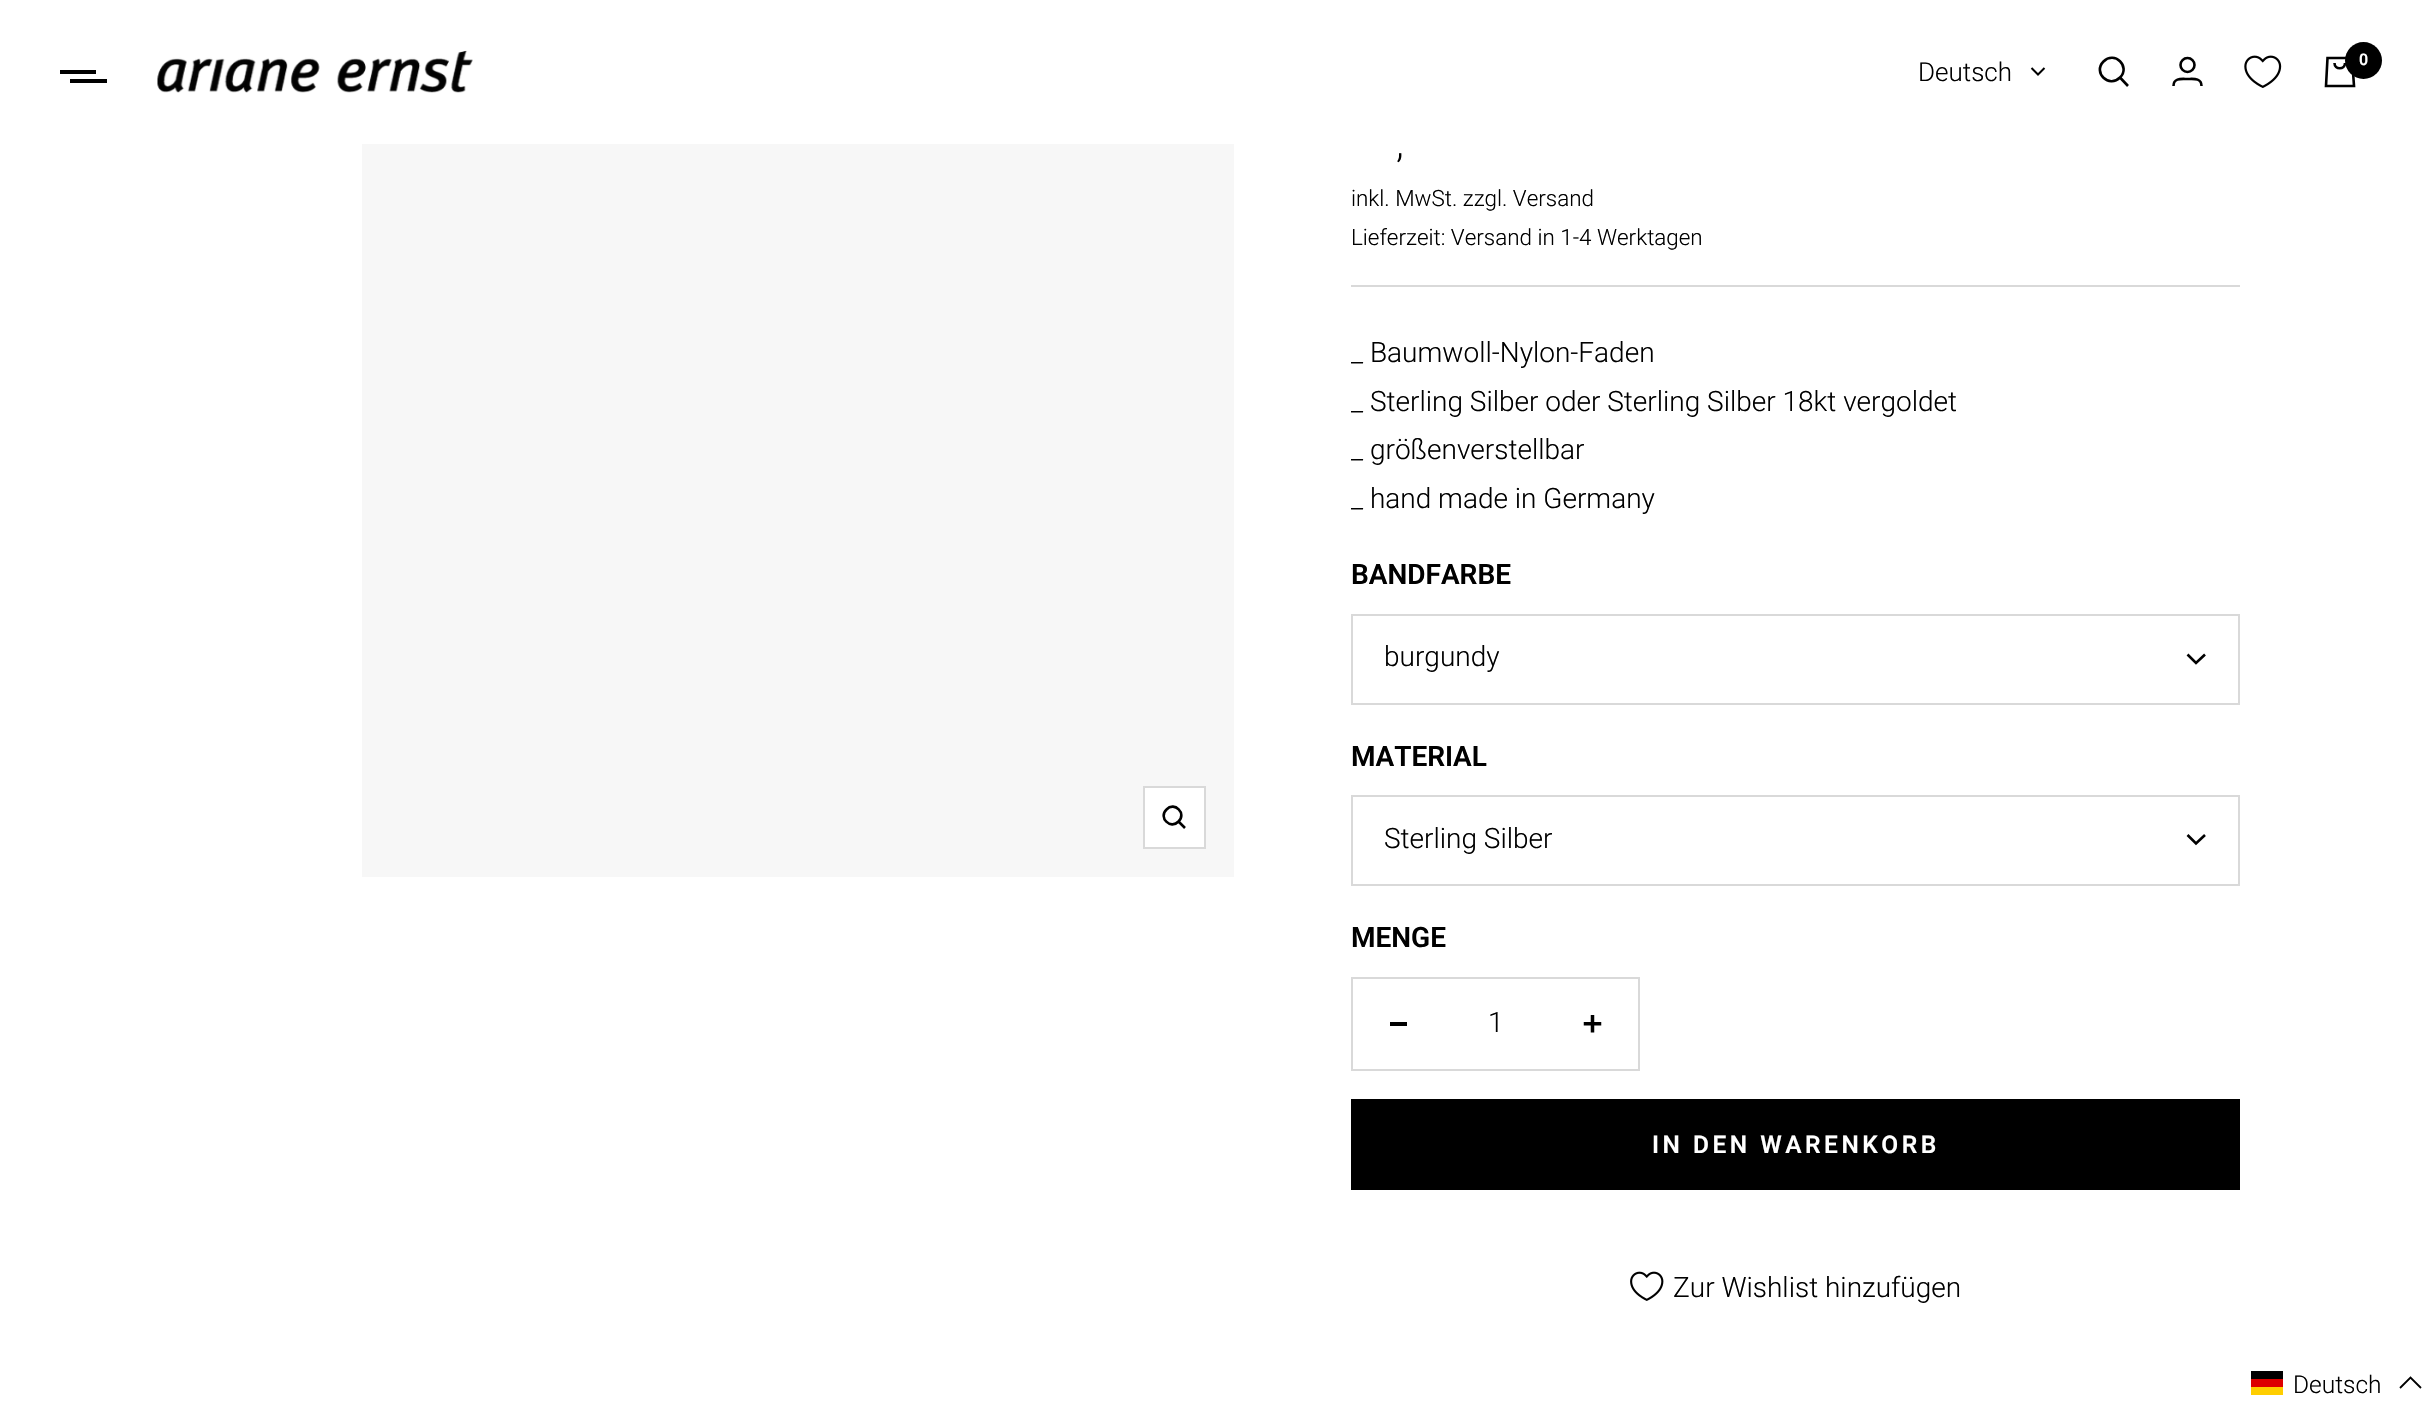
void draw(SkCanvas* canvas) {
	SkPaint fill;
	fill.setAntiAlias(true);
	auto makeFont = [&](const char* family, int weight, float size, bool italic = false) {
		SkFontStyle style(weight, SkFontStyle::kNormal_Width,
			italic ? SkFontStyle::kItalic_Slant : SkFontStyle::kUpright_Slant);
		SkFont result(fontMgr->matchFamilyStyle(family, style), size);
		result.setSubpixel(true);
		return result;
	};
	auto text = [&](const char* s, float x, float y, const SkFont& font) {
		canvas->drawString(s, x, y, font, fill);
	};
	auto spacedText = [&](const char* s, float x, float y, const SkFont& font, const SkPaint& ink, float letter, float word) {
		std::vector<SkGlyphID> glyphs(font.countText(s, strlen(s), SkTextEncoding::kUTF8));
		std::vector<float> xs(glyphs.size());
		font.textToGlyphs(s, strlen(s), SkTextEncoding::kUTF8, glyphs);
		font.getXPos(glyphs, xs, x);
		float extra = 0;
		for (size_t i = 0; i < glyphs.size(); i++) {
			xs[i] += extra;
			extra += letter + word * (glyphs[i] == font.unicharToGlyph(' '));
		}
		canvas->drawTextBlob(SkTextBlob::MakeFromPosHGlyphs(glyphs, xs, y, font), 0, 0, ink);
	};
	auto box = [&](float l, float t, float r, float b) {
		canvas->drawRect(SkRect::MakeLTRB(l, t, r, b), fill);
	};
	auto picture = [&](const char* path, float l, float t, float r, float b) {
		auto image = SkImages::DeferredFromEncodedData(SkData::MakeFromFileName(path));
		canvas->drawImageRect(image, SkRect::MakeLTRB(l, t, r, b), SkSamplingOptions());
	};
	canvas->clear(0xFFFFFFFF);
	fill.setColor(0xFF000000);
	box(60, 70, 96, 74);
	box(70, 79, 107, 83);
	picture("image0.png", 157, 50, 473, 93);
	fill.setStyle(SkPaint::kStroke_Style);
	fill.setStrokeWidth(2.6f);
	canvas->drawPath(SkPathBuilder().moveTo(2120, 77.5f).cubicTo(2131, 66.5f, 2114.5f, 50.5f, 2103.5f, 61.5f).cubicTo(2092.5f, 72.5f, 2109, 88.5f, 2120, 77.5f).close().moveTo(2120, 77.5f).lineTo(2128, 86).detach(), fill);
	canvas->drawCircle(2187.5f, 65, 7, fill);
	canvas->drawPath(SkPathBuilder().moveTo(2173.5f, 86).cubicTo(2173.5f, 77.5f, 2182, 79, 2187.5f, 79).cubicTo(2193, 79, 2201.5f, 77.5f, 2201.5f, 86).detach(), fill);
	picture("image1.png", 2244, 55, 2282, 88);
	canvas->drawPath(SkPathBuilder().moveTo(2327.5f, 58).lineTo(2352, 58).lineTo(2354, 86).lineTo(2326, 86).close().moveTo(2334.5f, 63).cubicTo(2334.5f, 70, 2345, 70, 2345, 63).detach(), fill);
	fill.setStyle(SkPaint::kFill_Style);
	canvas->drawCircle(2363.5f, 60.5f, 18.5f, fill);
	fill.setStyle(SkPaint::kStroke_Style);
	fill.setStrokeWidth(2);
	canvas->drawPath(SkPathBuilder().moveTo(2031.5f, 68).lineTo(2038, 74.5f).lineTo(2044.5f, 68).detach(), fill);
	fill.setStyle(SkPaint::kFill_Style);
	fill.setColor(0xFFF7F7F7);
	box(362, 144, 1234, 877);
	fill.setColor(0xFFFFFFFF);
	canvas->drawRect(SkRect::MakeLTRB(1144, 787, 1205, 848), fill);
	fill.setStyle(SkPaint::kStroke_Style);
	fill.setColor(0xFFD9D9D9);
	canvas->drawRect(SkRect::MakeLTRB(1144, 787, 1205, 848), fill);
	fill.setStrokeWidth(2.6f);
	fill.setColor(0xFF000000);
	canvas->drawPath(SkPathBuilder().moveTo(1178.5f, 821.5f).cubicTo(1187, 813.5f, 1174.5f, 801, 1166.5f, 809.5f).cubicTo(1158, 817.5f, 1170.5f, 830, 1178.5f, 821.5f).close().moveTo(1178.5f, 821.5f).lineTo(1185, 828).detach(), fill);
	fill.setStyle(SkPaint::kFill_Style);
	fill.setColor(0xFFD9D9D9);
	box(1351, 285, 2240, 287);
	fill.setStyle(SkPaint::kStroke_Style);
	fill.setStrokeWidth(2);
	canvas->drawRect(SkRect::MakeLTRB(1352, 615, 2239, 704), fill);
	fill.setStrokeWidth(2.6f);
	fill.setColor(0xFF000000);
	canvas->drawPath(SkPathBuilder().moveTo(2187.5f, 654.5f).lineTo(2196, 663).lineTo(2205, 654.5f).detach(), fill);
	fill.setStrokeWidth(2);
	fill.setColor(0xFFD9D9D9);
	canvas->drawRect(SkRect::MakeLTRB(1352, 796, 2239, 885), fill);
	fill.setStrokeWidth(2.6f);
	fill.setColor(0xFF000000);
	canvas->drawPath(SkPathBuilder().moveTo(2187.5f, 835).lineTo(2196, 843.5f).lineTo(2205, 835).detach(), fill);
	fill.setStrokeWidth(2);
	fill.setColor(0xFFD9D9D9);
	canvas->drawRect(SkRect::MakeLTRB(1352, 978, 1639, 1070), fill);
	fill.setStyle(SkPaint::kFill_Style);
	fill.setColor(0xFF000000);
	box(1390, 1022, 1407, 1026);
	picture("image2.png", 1583, 1015, 1602, 1033);
	box(1351, 1099, 2240, 1190);
	picture("image3.png", 1630, 1271, 1664, 1301);
	fill.setColor(0xFFFFCE00);
	box(2251, 1387, 2283, 1395);
	fill.setColor(0xFF000000);
	box(2251, 1371, 2283, 1379);
	fill.setColor(0xFFDD0000);
	box(2251, 1379, 2283, 1387);
	fill.setStyle(SkPaint::kStroke_Style);
	fill.setStrokeWidth(1.8f);
	fill.setColor(0xFF000000);
	canvas->drawPath(SkPathBuilder().moveTo(2421, 1388).lineTo(2410.5f, 1377.5f).lineTo(2400, 1388).detach(), fill);
	auto font1 = makeFont("Roboto", 600, 16);
	fill.setStyle(SkPaint::kFill_Style);
	fill.setColor(0xFFFFFFFF);
	text("0", 2359, 65, font1);
	auto font2 = makeFont("Roboto", 300, 26);
	fill.setColor(0xFF000000);
	text("Deutsch", 1918, 81, font2);
	auto font3 = makeFont("Roboto", 300, 40);
	text(",", 1396, 157, font3);
	auto font4 = makeFont("Roboto", 300, 22.4f);
	text("inkl. MwSt. zzgl. Versand", 1351, 206, font4);
	text("Lieferzeit: Versand in 1-4 Werktagen", 1351, 245, font4);
	auto font5 = makeFont("Roboto", 300, 28);
	text("_ Baumwoll-Nylon-Faden", 1351, 362, font5);
	text("_ Sterling Silber oder Sterling Silber 18kt vergoldet", 1351, 411, font5);
	text("_ größenverstellbar", 1351, 459, font5);
	text("_ hand made in Germany", 1351, 508, font5);
	auto font6 = makeFont("Roboto", 600, 28);
	text("BANDFARBE", 1351, 584, font6);
	text("burgundy", 1384, 666, font5);
	text("MATERIAL", 1351, 766, font6);
	text("Sterling Silber", 1384, 848, font5);
	text("MENGE", 1351, 947, font6);
	text("1", 1488, 1032, font5);
	auto font7 = makeFont("Roboto", 600, 24.5f);
	fill.setColor(0xFFFFFFFF);
	spacedText("IN DEN WARENKORB", 1652, 1153, font7, fill, 3.5f, 0);
	fill.setColor(0xFF000000);
	text("Zur Wishlist hinzufügen", 1673, 1297, font5);
	auto font8 = makeFont("Roboto", 300, 24.5f);
	text("Deutsch", 2293, 1393, font8);
}
